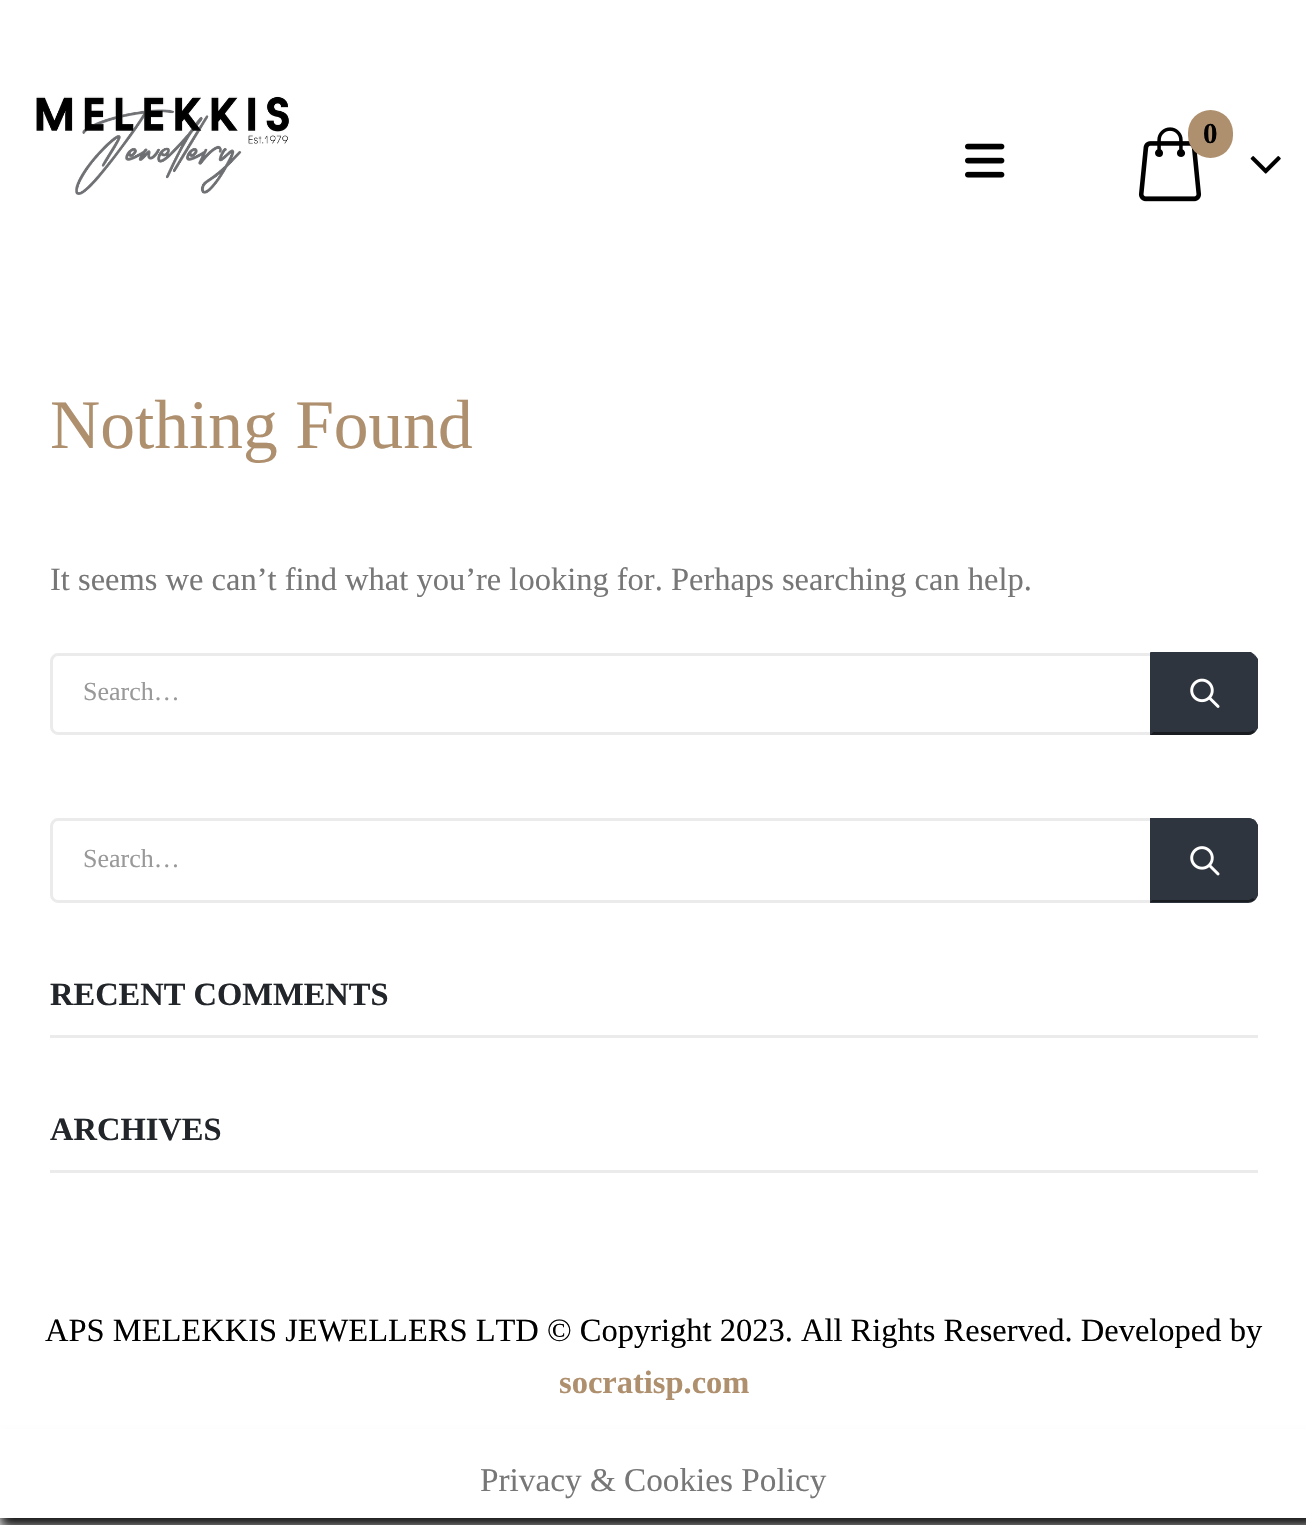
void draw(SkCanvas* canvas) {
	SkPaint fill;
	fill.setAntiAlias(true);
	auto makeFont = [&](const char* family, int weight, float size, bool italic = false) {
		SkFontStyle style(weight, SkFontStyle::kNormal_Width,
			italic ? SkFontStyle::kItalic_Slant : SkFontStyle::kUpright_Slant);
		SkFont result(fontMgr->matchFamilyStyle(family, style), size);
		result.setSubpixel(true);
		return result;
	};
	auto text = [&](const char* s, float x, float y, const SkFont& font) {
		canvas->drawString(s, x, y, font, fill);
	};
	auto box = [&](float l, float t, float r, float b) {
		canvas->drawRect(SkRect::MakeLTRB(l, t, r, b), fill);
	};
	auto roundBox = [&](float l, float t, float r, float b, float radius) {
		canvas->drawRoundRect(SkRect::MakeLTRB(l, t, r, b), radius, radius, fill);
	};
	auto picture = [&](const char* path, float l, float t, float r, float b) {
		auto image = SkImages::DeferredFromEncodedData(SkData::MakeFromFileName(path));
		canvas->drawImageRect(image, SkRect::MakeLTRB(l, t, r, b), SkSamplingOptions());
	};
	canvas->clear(0xFFFFFFFF);
	picture("image0.png", 36, 96, 290, 195);
	picture("image1.png", 1138, 127, 1202, 202);
	fill.setColor(0xFFAF906E);
	roundBox(1188, 110, 1233, 158, 22.5f);
	picture("image2.png", 1250, 156, 1281, 174);
	picture("image3.png", 965, 143, 1005, 178);
	fill.setStyle(SkPaint::kStroke_Style);
	fill.setStrokeWidth(3);
	fill.setColor(0xFFEBEBEB);
	canvas->drawPath(SkPathBuilder().moveTo(58, 654.5f).lineTo(1151.5f, 654.5f).lineTo(1151.5f, 733.5f).lineTo(58, 733.5f).cubicTo(54.5f, 733.5f, 51.5f, 730.5f, 51.5f, 727).lineTo(51.5f, 661).cubicTo(51.5f, 657.5f, 54.5f, 654.5f, 58, 654.5f).close().detach(), fill);
	fill.setStyle(SkPaint::kFill_Style);
	fill.setColor(0xFF2E353E);
	canvas->drawPath(SkPathBuilder().moveTo(1150, 653).lineTo(1248, 653).cubicTo(1253.5f, 653, 1258, 657.5f, 1258, 663).lineTo(1258, 725).cubicTo(1258, 730.5f, 1253.5f, 735, 1248, 735).lineTo(1150, 735).close().detach(), fill);
	canvas->drawPath(SkPathBuilder().moveTo(1150, 652).lineTo(1251, 652).lineTo(1255, 655).lineTo(1253, 657).lineTo(1249, 655).lineTo(1152, 655).close().detach(), fill);
	canvas->drawPath(SkPathBuilder().moveTo(1258, 728).lineTo(1255, 732).lineTo(1253, 730).cubicTo(1254, 729, 1255, 727, 1255, 725).lineTo(1255, 662).cubicTo(1255, 660, 1254, 658, 1253, 657).lineTo(1255, 655).lineTo(1258, 659).close().detach(), fill);
	fill.setColor(0xFF191C21);
	canvas->drawPath(SkPathBuilder().moveTo(1248, 735).cubicTo(1250, 735, 1253, 734, 1255, 732).lineTo(1253, 730).cubicTo(1252, 731, 1250, 732, 1248, 732).lineTo(1153, 732).lineTo(1150, 735).close().detach(), fill);
	fill.setColor(0xFF2E353E);
	canvas->drawPath(SkPathBuilder().moveTo(1152, 655).lineTo(1150, 652).lineTo(1150, 735).lineTo(1153, 732).lineTo(1152, 732).close().detach(), fill);
	picture("image4.png", 1190, 678, 1220, 708);
	fill.setStyle(SkPaint::kStroke_Style);
	fill.setColor(0xFFEBEBEB);
	canvas->drawPath(SkPathBuilder().moveTo(58, 819.5f).lineTo(1151.5f, 819.5f).lineTo(1151.5f, 901.5f).lineTo(58, 901.5f).cubicTo(54.5f, 901.5f, 51.5f, 898.5f, 51.5f, 895).lineTo(51.5f, 826).cubicTo(51.5f, 822.5f, 54.5f, 819.5f, 58, 819.5f).close().detach(), fill);
	fill.setStyle(SkPaint::kFill_Style);
	fill.setColor(0xFF2E353E);
	canvas->drawPath(SkPathBuilder().moveTo(1150, 818).lineTo(1248, 818).cubicTo(1253.5f, 818, 1258, 822.5f, 1258, 828).lineTo(1258, 893).cubicTo(1258, 898.5f, 1253.5f, 903, 1248, 903).lineTo(1150, 903).close().detach(), fill);
	canvas->drawPath(SkPathBuilder().moveTo(1255, 820).cubicTo(1253, 819, 1250, 818, 1248, 818).lineTo(1150, 818).lineTo(1152, 820).lineTo(1249, 820).lineTo(1253, 822).close().detach(), fill);
	canvas->drawPath(SkPathBuilder().moveTo(1255, 820).cubicTo(1256, 822, 1257, 823, 1258, 825).lineTo(1258, 895).cubicTo(1257, 897, 1256, 898, 1255, 900).lineTo(1253, 898).cubicTo(1254, 897, 1255, 895, 1255, 892).lineTo(1255, 828).cubicTo(1255, 825, 1254, 823, 1253, 822).close().detach(), fill);
	fill.setColor(0xFF191C21);
	canvas->drawPath(SkPathBuilder().moveTo(1255, 900).cubicTo(1253, 901, 1250, 902, 1248, 902).lineTo(1150, 902).lineTo(1152, 900).lineTo(1249, 900).lineTo(1253, 898).close().detach(), fill);
	fill.setColor(0xFF2E353E);
	canvas->drawPath(SkPathBuilder().moveTo(1152, 820).lineTo(1152, 900).lineTo(1150, 902).lineTo(1150, 818).close().detach(), fill);
	picture("image5.png", 1190, 846, 1220, 876);
	fill.setColor(0xFFEBEBEB);
	box(50, 1035, 1258, 1038);
	box(50, 1170, 1258, 1173);
	canvas->save();
	canvas->clipPath(SkPathBuilder(SkPathFillType::kEvenOdd).moveTo(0, 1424).lineTo(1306, 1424).lineTo(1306, 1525).lineTo(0, 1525).close().moveTo(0, 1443).lineTo(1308, 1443).lineTo(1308, 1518).lineTo(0, 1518).close().detach(), true);
	fill.setColor(0xFF161616);
	fill.setMaskFilter(SkMaskFilter::MakeBlur(kNormal_SkBlurStyle, 6));
	canvas->drawRect(SkRect::MakeLTRB(0, 1443, 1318, 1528), fill);
	fill.setMaskFilter(nullptr);
	canvas->restore();
	fill.setColor(0xFFFFFFFF);
	box(0, 1429, 1306, 1443);
	auto font1 = makeFont("Liberation Serif", 700, 29);
	fill.setColor(0xFF000000);
	text("0", 1203, 143, font1);
	auto font2 = makeFont("Liberation Serif", 400, 69.5f);
	fill.setColor(0xFFAF906E);
	text("Nothing Found", 50, 448, font2);
	auto font3 = makeFont("Liberation Serif", 400, 32.5f);
	fill.setColor(0xFF777777);
	text("It seems we can’t find what you’re looking for. Perhaps searching can help.", 50, 590, font3);
	auto font4 = makeFont("Liberation Serif", 400, 26);
	fill.setColor(0xFF999999);
	text("Search…", 83, 700, font4);
	text("Search…", 83, 867, font4);
	auto font5 = makeFont("Liberation Serif", 700, 32.5f);
	fill.setColor(0xFF222529);
	text("RECENT COMMENTS", 50, 1005, font5);
	text("ARCHIVES", 50, 1140, font5);
	fill.setColor(0xFF000000);
	text("APS MELEKKIS JEWELLERS LTD © Copyright 2023. All Rights Reserved. Developed by", 45, 1341, font3);
	fill.setColor(0xFFAF906E);
	text("socratisp.com", 559, 1393, font5);
	auto font6 = makeFont("Liberation Serif", 400, 33.25f);
	fill.setColor(0xFF777777);
	text("Privacy & Cookies Policy", 480, 1491, font6);
}
